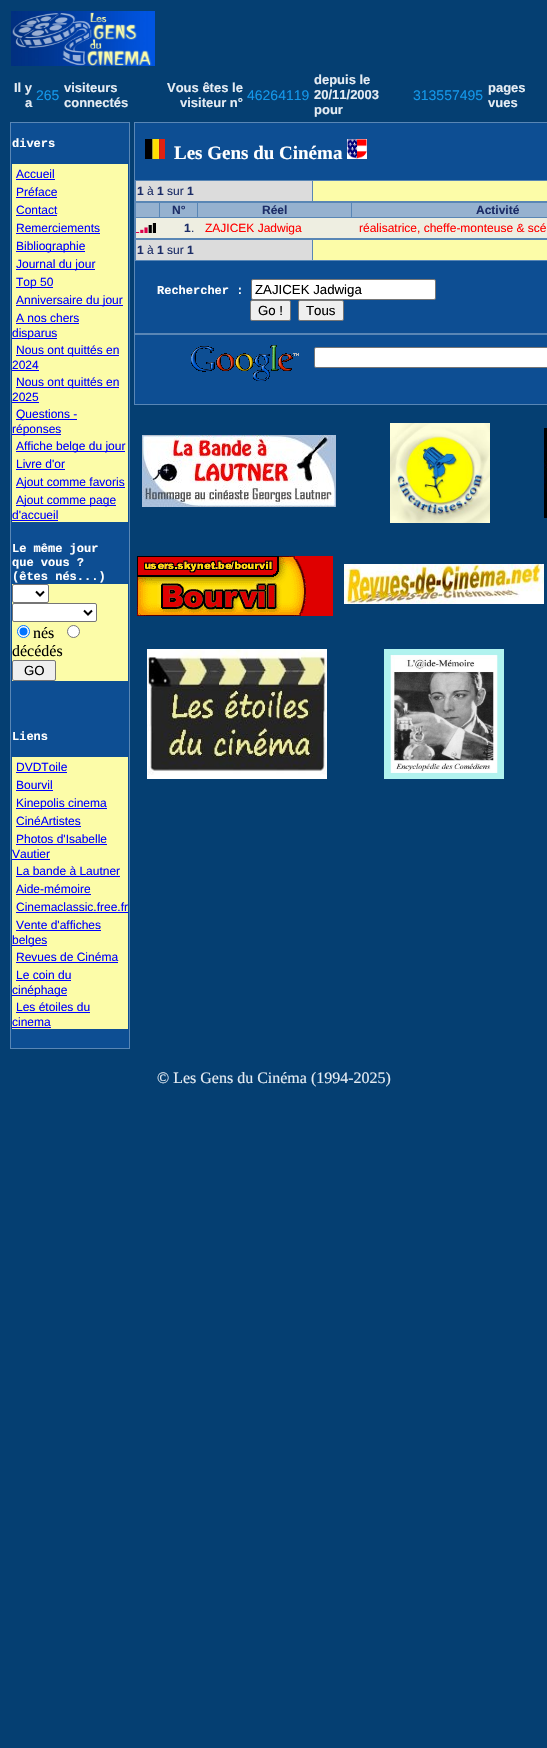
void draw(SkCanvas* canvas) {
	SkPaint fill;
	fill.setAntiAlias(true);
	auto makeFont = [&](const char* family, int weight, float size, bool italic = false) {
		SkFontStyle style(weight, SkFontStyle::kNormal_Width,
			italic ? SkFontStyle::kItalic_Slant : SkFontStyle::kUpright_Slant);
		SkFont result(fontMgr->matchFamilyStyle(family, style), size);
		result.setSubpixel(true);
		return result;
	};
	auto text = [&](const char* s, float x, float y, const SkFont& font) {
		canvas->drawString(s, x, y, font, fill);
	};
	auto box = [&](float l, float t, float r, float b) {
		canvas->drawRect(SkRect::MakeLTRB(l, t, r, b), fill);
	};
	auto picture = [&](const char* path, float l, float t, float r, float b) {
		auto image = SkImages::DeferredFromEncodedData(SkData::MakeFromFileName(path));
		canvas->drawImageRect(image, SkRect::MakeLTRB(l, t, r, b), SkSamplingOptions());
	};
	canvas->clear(0xFF053F72);
	picture("image0.png", 11, 11, 155, 66);
	fill.setColor(0xFF5986B5);
	box(10, 122, 130, 1049);
	fill.setColor(0xFF0D4E93);
	box(11, 123, 129, 1048);
	fill.setColor(0xFFFCFCA8);
	box(12, 164, 128, 522);
	fill.setColor(0xFF0000FF);
	box(16, 179, 55, 180);
	box(16, 197, 57, 198);
	box(16, 215, 57, 216);
	box(16, 233, 100, 234);
	box(16, 251, 85, 252);
	box(16, 269, 95, 270);
	box(16, 287, 53, 288);
	box(16, 305, 123, 306);
	box(16, 323, 79, 324);
	box(12, 338, 57, 339);
	box(16, 355, 119, 356);
	box(12, 370, 39, 371);
	box(16, 387, 119, 388);
	box(12, 402, 39, 403);
	box(16, 419, 77, 420);
	box(12, 434, 61, 435);
	box(16, 451, 125, 452);
	box(16, 469, 65, 470);
	box(16, 487, 125, 488);
	box(16, 505, 116, 506);
	box(12, 520, 58, 521);
	fill.setColor(0xFFFCFCA8);
	box(12, 584, 128, 681);
	fill.setColor(0xFFFFFFFF);
	canvas->drawRoundRect(SkRect::MakeLTRB(12.5f, 584.5f, 48.5f, 602.5f), 1.5f, 1.5f, fill);
	fill.setStyle(SkPaint::kStroke_Style);
	fill.setStrokeWidth(1);
	fill.setColor(0xFF767676);
	canvas->drawRoundRect(SkRect::MakeLTRB(12.5f, 584.5f, 48.5f, 602.5f), 1.5f, 1.5f, fill);
	fill.setStrokeWidth(2);
	fill.setColor(0xFF000000);
	canvas->drawPath(SkPathBuilder().moveTo(36, 591.5f).lineTo(40, 595.5f).lineTo(44, 591.5f).detach(), fill);
	fill.setStyle(SkPaint::kFill_Style);
	fill.setColor(0xFFFFFFFF);
	canvas->drawRoundRect(SkRect::MakeLTRB(12.5f, 603.5f, 96.5f, 621.5f), 1.5f, 1.5f, fill);
	fill.setStyle(SkPaint::kStroke_Style);
	fill.setStrokeWidth(1);
	fill.setColor(0xFF767676);
	canvas->drawRoundRect(SkRect::MakeLTRB(12.5f, 603.5f, 96.5f, 621.5f), 1.5f, 1.5f, fill);
	fill.setStrokeWidth(2);
	fill.setColor(0xFF000000);
	canvas->drawPath(SkPathBuilder().moveTo(84, 610.5f).lineTo(88, 614.5f).lineTo(92, 610.5f).detach(), fill);
	fill.setStyle(SkPaint::kFill_Style);
	fill.setColor(0xFFFFFFFF);
	canvas->drawCircle(23.5f, 631.5f, 6, fill);
	fill.setStyle(SkPaint::kStroke_Style);
	fill.setStrokeWidth(1);
	fill.setColor(0xFF0075FF);
	canvas->drawCircle(23.5f, 631.5f, 6, fill);
	fill.setStyle(SkPaint::kFill_Style);
	canvas->drawCircle(23.5f, 631.5f, 4, fill);
	fill.setColor(0xFFFFFFFF);
	canvas->drawCircle(73.5f, 631.5f, 6, fill);
	fill.setStyle(SkPaint::kStroke_Style);
	fill.setColor(0xFF767676);
	canvas->drawCircle(73.5f, 631.5f, 6, fill);
	fill.setStyle(SkPaint::kFill_Style);
	fill.setColor(0xFFEFEFEF);
	canvas->drawRoundRect(SkRect::MakeLTRB(12.5f, 660.5f, 55.5f, 680.5f), 1.5f, 1.5f, fill);
	fill.setStyle(SkPaint::kStroke_Style);
	fill.setColor(0xFF767676);
	canvas->drawRoundRect(SkRect::MakeLTRB(12.5f, 660.5f, 55.5f, 680.5f), 1.5f, 1.5f, fill);
	fill.setStyle(SkPaint::kFill_Style);
	fill.setColor(0xFFFCFCA8);
	box(12, 757, 128, 1029);
	fill.setColor(0xFF0000FF);
	box(16, 772, 67, 773);
	box(16, 790, 53, 791);
	box(16, 808, 107, 809);
	box(16, 826, 81, 827);
	box(16, 844, 107, 845);
	box(12, 859, 50, 860);
	box(16, 876, 120, 877);
	box(16, 894, 91, 895);
	box(16, 912, 128, 913);
	box(16, 930, 101, 931);
	box(12, 945, 47, 946);
	box(16, 962, 118, 963);
	box(16, 980, 71, 981);
	box(12, 995, 67, 996);
	box(16, 1012, 90, 1013);
	box(12, 1027, 51, 1028);
	fill.setColor(0xFF5986B5);
	box(134, 122, 547, 405);
	fill.setColor(0xFF0D4E93);
	box(135, 123, 547, 180);
	picture("image1.png", 145, 139, 165, 159);
	picture("image2.png", 347, 139, 367, 159);
	fill.setColor(0xFFDCDCDC);
	box(136, 181, 312, 201);
	fill.setColor(0xFFFCFCA8);
	box(313, 181, 547, 201);
	fill.setColor(0xFF95B1CF);
	box(136, 203, 159, 217);
	box(160, 203, 197, 217);
	box(198, 203, 351, 217);
	box(352, 203, 547, 217);
	fill.setColor(0xFFEEEEE1);
	box(136, 218, 547, 238);
	picture("image3.png", 136, 223, 156, 233);
	fill.setColor(0xFFDCDCDC);
	box(136, 240, 312, 260);
	fill.setColor(0xFFFCFCA8);
	box(313, 240, 547, 260);
	fill.setColor(0xFF0D4E93);
	box(135, 261, 547, 279);
	box(135, 279, 547, 333);
	fill.setColor(0xFFFFFFFF);
	canvas->drawRoundRect(SkRect::MakeLTRB(251.5f, 279.5f, 435.5f, 299.5f), 1.5f, 1.5f, fill);
	fill.setStyle(SkPaint::kStroke_Style);
	fill.setColor(0xFF767676);
	canvas->drawRoundRect(SkRect::MakeLTRB(251.5f, 279.5f, 435.5f, 299.5f), 1.5f, 1.5f, fill);
	fill.setStyle(SkPaint::kFill_Style);
	fill.setColor(0xFFEFEFEF);
	canvas->drawRoundRect(SkRect::MakeLTRB(250.5f, 300.5f, 290.5f, 320.5f), 1.5f, 1.5f, fill);
	fill.setStyle(SkPaint::kStroke_Style);
	fill.setColor(0xFF767676);
	canvas->drawRoundRect(SkRect::MakeLTRB(250.5f, 300.5f, 290.5f, 320.5f), 1.5f, 1.5f, fill);
	fill.setStyle(SkPaint::kFill_Style);
	fill.setColor(0xFFEFEFEF);
	canvas->drawRoundRect(SkRect::MakeLTRB(298.5f, 300.5f, 343.5f, 320.5f), 1.5f, 1.5f, fill);
	fill.setStyle(SkPaint::kStroke_Style);
	fill.setColor(0xFF767676);
	canvas->drawRoundRect(SkRect::MakeLTRB(298.5f, 300.5f, 343.5f, 320.5f), 1.5f, 1.5f, fill);
	fill.setStyle(SkPaint::kFill_Style);
	fill.setColor(0xFF0D4E93);
	box(135, 335, 547, 404);
	picture("image4.png", 191, 345, 299, 381);
	fill.setColor(0xFFFFFFFF);
	canvas->drawRoundRect(SkRect::MakeLTRB(314.5f, 347.5f, 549.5f, 367.5f), 1.5f, 1.5f, fill);
	fill.setStyle(SkPaint::kStroke_Style);
	fill.setColor(0xFF767676);
	canvas->drawRoundRect(SkRect::MakeLTRB(314.5f, 347.5f, 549.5f, 367.5f), 1.5f, 1.5f, fill);
	picture("image5.png", 142, 435, 336, 507);
	picture("image6.png", 390, 423, 490, 523);
	picture("image7.png", 544, 428, 547, 518);
	picture("image8.png", 137, 556, 333, 616);
	picture("image9.png", 344, 564, 544, 604);
	picture("image10.png", 147, 649, 327, 779);
	picture("image11.png", 384, 649, 504, 779);
	auto font1 = makeFont("Liberation Sans", 700, 13);
	fill.setStyle(SkPaint::kFill_Style);
	fill.setColor(0xFFE5ECF3);
	text("Il y", 14, 92, font1);
	text("a", 25, 107, font1);
	auto font2 = makeFont("Liberation Sans", 400, 14);
	fill.setColor(0xFF1397E9);
	text("265", 36, 100, font2);
	fill.setColor(0xFFE5ECF3);
	text("visiteurs", 64, 92, font1);
	text("connectés", 64, 107, font1);
	text("Vous êtes le", 167, 92, font1);
	text("visiteur n°", 180, 107, font1);
	fill.setColor(0xFF1397E9);
	text("46264119", 247, 100, font2);
	fill.setColor(0xFFE5ECF3);
	text("depuis le", 314, 84, font1);
	text("20/11/2003", 314, 99, font1);
	text("pour", 314, 114, font1);
	fill.setColor(0xFF1397E9);
	text("313557495", 413, 100, font2);
	fill.setColor(0xFFE5ECF3);
	text("pages", 488, 92, font1);
	text("vues", 488, 107, font1);
	auto font3 = makeFont("Liberation Mono", 700, 12);
	fill.setColor(0xFFFFFFFF);
	text("divers", 12, 147, font3);
	auto font4 = makeFont("Liberation Sans", 400, 12);
	fill.setColor(0xFF0000FF);
	text("Accueil", 16, 178, font4);
	text("Préface", 16, 196, font4);
	text("Contact", 16, 214, font4);
	text("Remerciements", 16, 232, font4);
	text("Bibliographie", 16, 250, font4);
	text("Journal du jour", 16, 268, font4);
	text("Top 50", 16, 286, font4);
	text("Anniversaire du jour", 16, 304, font4);
	text("A nos chers", 16, 322, font4);
	text("disparus", 12, 337, font4);
	text("Nous ont quittés en", 16, 354, font4);
	text("2024", 12, 369, font4);
	text("Nous ont quittés en", 16, 386, font4);
	text("2025", 12, 401, font4);
	text("Questions -", 16, 418, font4);
	text("réponses", 12, 433, font4);
	text("Affiche belge du jour", 16, 450, font4);
	text("Livre d'or", 16, 468, font4);
	text("Ajout comme favoris", 16, 486, font4);
	text("Ajout comme page", 16, 504, font4);
	text("d'accueil", 12, 519, font4);
	fill.setColor(0xFFFFFFFF);
	text("Le même jour", 12, 552, font3);
	text("que vous ?", 12, 566, font3);
	text("(êtes nés...)", 12, 580, font3);
	auto font5 = makeFont("Liberation Serif", 400, 16);
	fill.setColor(0xFF000000);
	text("nés", 33, 638, font5);
	text("décédés", 12, 656, font5);
	auto font6 = makeFont("Liberation Sans", 400, 13.25f);
	text("GO", 24, 675, font6);
	fill.setColor(0xFFFFFFFF);
	text("Liens", 12, 740, font3);
	fill.setColor(0xFF0000FF);
	text("DVDToile", 16, 771, font4);
	text("Bourvil", 16, 789, font4);
	text("Kinepolis cinema", 16, 807, font4);
	text("CinéArtistes", 16, 825, font4);
	text("Photos d'Isabelle", 16, 843, font4);
	text("Vautier", 12, 858, font4);
	text("La bande à Lautner", 16, 875, font4);
	text("Aide-mémoire", 16, 893, font4);
	text("Cinemaclassic.free.fr", 16, 911, font4);
	text("Vente d'affiches", 16, 929, font4);
	text("belges", 12, 944, font4);
	text("Revues de Cinéma", 16, 961, font4);
	text("Le coin du", 16, 979, font4);
	text("cinéphage", 12, 994, font4);
	text("Les étoiles du", 16, 1011, font4);
	text("cinema", 12, 1026, font4);
	auto font7 = makeFont("Liberation Serif", 700, 19);
	fill.setColor(0xFFFFFFFF);
	text("Les Gens du Cinéma", 174, 159, font7);
	auto font8 = makeFont("Liberation Sans", 700, 12);
	fill.setColor(0xFF1C2D67);
	text("1", 137, 195, font8);
	text("à", 147, 195, font4);
	text("1", 157, 195, font8);
	text("sur", 167, 195, font4);
	text("1", 187, 195, font8);
	text("N°", 172, 214, font8);
	text("Réel", 262, 214, font8);
	text("Activité", 476, 214, font8);
	text("1", 184, 232, font8);
	text(".", 191, 232, font4);
	fill.setColor(0xFFFF0000);
	text("ZAJICEK Jadwiga", 205, 232, font4);
	text("réalisatrice, cheffe-monteuse & scé", 359, 232, font4);
	fill.setColor(0xFF1C2D67);
	text("1", 137, 254, font8);
	text("à", 147, 254, font4);
	text("1", 157, 254, font8);
	text("sur", 167, 254, font4);
	text("1", 187, 254, font8);
	fill.setColor(0xFFFFFFFF);
	text("Rechercher :", 157, 294, font3);
	fill.setColor(0xFF000000);
	text("ZAJICEK Jadwiga", 255, 294, font6);
	text("Go !", 258, 315, font6);
	text("Tous", 306, 315, font6);
	fill.setColor(0xFFE5ECF3);
	text("© Les Gens du Cinéma (1994-2025)", 157, 1083, font5);
}
